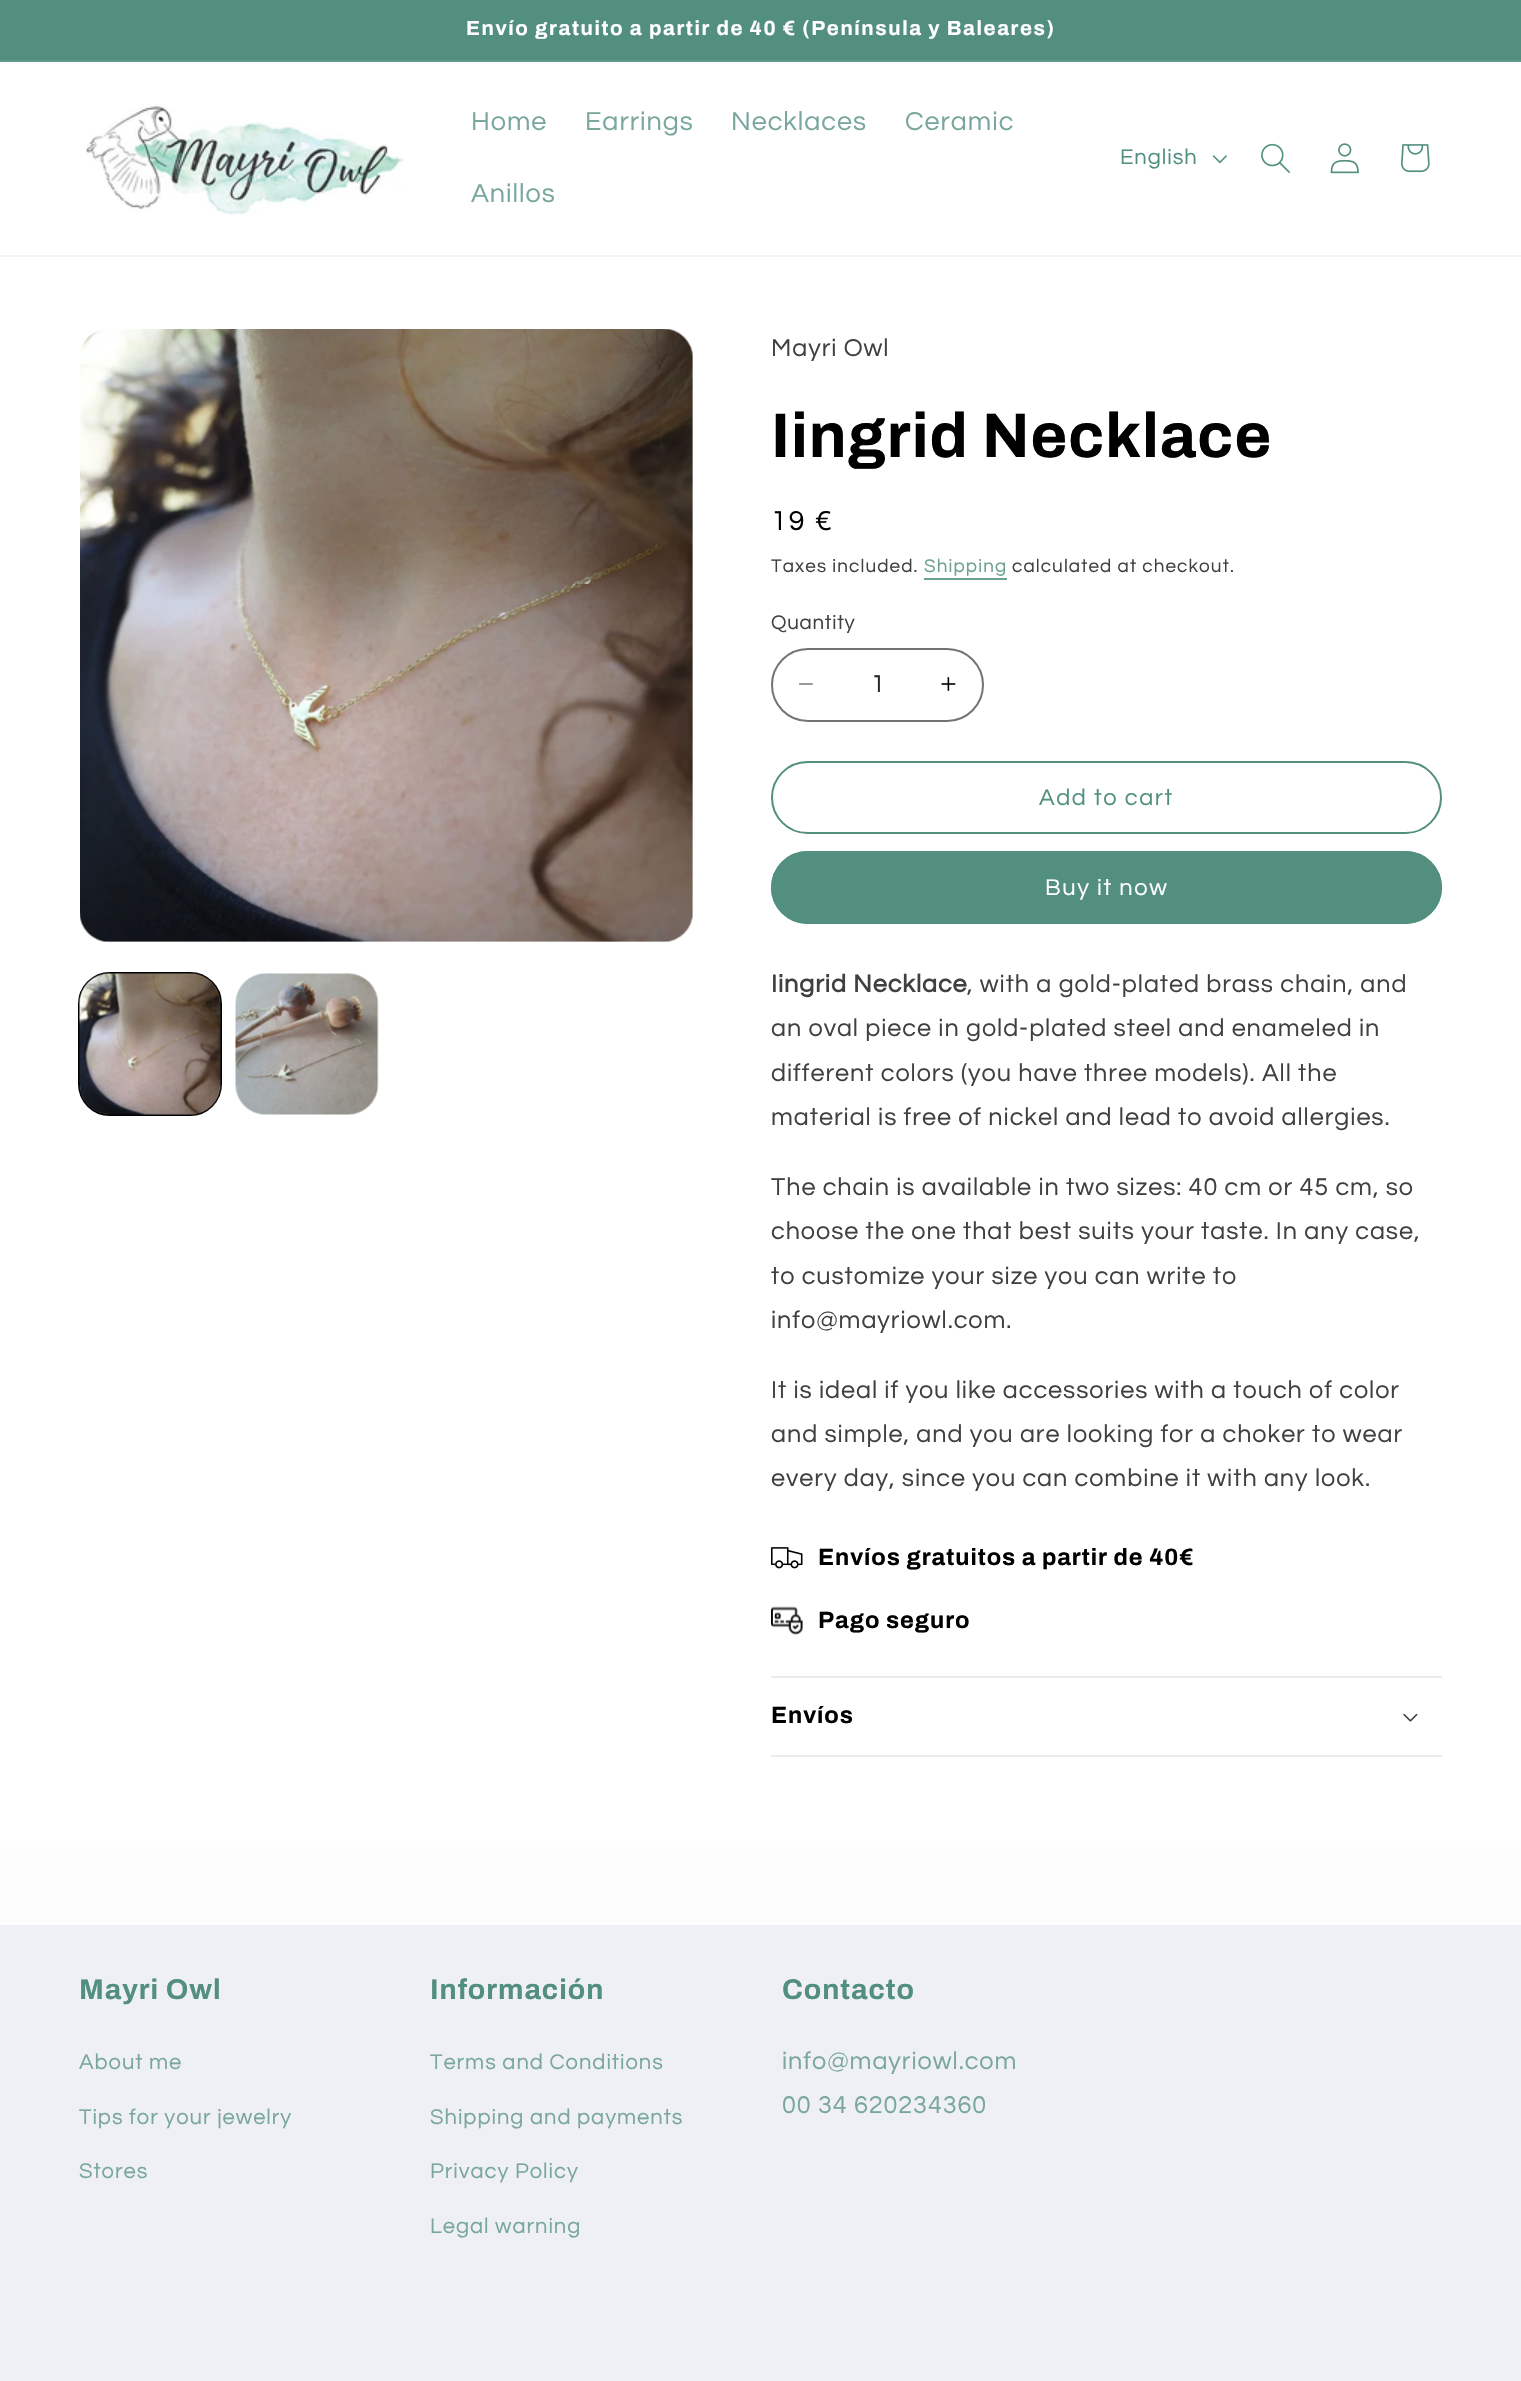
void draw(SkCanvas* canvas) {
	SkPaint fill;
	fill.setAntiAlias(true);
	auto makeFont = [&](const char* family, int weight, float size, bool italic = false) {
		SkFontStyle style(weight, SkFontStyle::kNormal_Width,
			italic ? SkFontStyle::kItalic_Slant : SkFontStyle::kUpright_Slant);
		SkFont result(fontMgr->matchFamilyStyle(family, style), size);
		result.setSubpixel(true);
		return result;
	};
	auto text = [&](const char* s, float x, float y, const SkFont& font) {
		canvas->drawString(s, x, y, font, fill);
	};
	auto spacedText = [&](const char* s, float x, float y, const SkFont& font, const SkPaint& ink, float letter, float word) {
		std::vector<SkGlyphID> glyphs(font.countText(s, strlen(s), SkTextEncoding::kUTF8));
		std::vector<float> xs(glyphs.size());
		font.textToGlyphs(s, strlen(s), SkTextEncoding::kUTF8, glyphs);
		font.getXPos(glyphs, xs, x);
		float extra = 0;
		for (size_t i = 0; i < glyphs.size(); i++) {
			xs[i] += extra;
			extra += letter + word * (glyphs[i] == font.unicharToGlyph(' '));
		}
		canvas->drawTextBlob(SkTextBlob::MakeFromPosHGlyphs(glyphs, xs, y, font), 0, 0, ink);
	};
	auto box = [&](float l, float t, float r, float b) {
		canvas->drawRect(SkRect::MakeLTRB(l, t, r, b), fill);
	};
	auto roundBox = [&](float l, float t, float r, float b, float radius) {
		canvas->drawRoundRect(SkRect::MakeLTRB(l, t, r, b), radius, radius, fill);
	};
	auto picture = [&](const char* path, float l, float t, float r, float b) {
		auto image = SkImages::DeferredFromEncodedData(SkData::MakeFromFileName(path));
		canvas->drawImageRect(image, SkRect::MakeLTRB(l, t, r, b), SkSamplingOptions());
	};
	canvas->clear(0xFFFCFCFD);
	fill.setColor(0xFF528F7F);
	box(0, 0, 1521, 60);
	fill.setColor(0xFF609889);
	box(0, 60, 1521, 62);
	fill.setColor(0xFFFFFFFF);
	box(0, 62, 1521, 255);
	fill.setColor(0xFFF1F6F5);
	box(0, 255, 1521, 257);
	picture("image0.png", 85, 104, 404, 215);
	picture("image1.png", 1212, 155, 1227, 164);
	picture("image2.png", 1261, 143, 1290, 173);
	picture("image3.png", 1330, 143, 1359, 174);
	picture("image4.png", 1401, 144, 1430, 173);
	fill.setColor(0xFFFFFFFF);
	box(0, 257, 1521, 1847);
	picture("image5.png", 80, 329, 693, 942);
	fill.setStyle(SkPaint::kStroke_Style);
	fill.setStrokeWidth(2);
	fill.setColor(0xFF000000);
	canvas->drawRoundRect(SkRect::MakeLTRB(79, 973, 221, 1115), 31, 31, fill);
	picture("image6.png", 79, 973, 221, 1115);
	picture("image7.png", 235, 973, 379, 1115);
	fill.setStyle(SkPaint::kFill_Style);
	fill.setColor(0xFF6CA092);
	box(924, 578, 1007, 580);
	picture("image8.png", 798, 683, 813, 685);
	picture("image9.png", 941, 677, 956, 691);
	fill.setStyle(SkPaint::kStroke_Style);
	fill.setColor(0xFF737373);
	canvas->drawRoundRect(SkRect::MakeLTRB(772, 649, 983, 721), 36, 36, fill);
	fill.setColor(0xFF528F7F);
	canvas->drawRoundRect(SkRect::MakeLTRB(772, 762, 1441, 833), 35.5f, 35.5f, fill);
	fill.setStyle(SkPaint::kFill_Style);
	roundBox(771, 851, 1442, 924, 36.5f);
	fill.setStyle(SkPaint::kStroke_Style);
	canvas->drawRoundRect(SkRect::MakeLTRB(772, 852, 1441, 923), 35.5f, 35.5f, fill);
	picture("image10.png", 771, 1547, 803, 1569);
	picture("image11.png", 771, 1606, 803, 1635);
	fill.setStyle(SkPaint::kFill_Style);
	fill.setColor(0xFFEBEBEB);
	box(771, 1676, 1442, 1678);
	box(771, 1755, 1442, 1757);
	picture("image12.png", 1403, 1713, 1418, 1722);
	fill.setColor(0xFFEFF0F5);
	box(0, 1925, 1521, 2381);
	auto font1 = makeFont("Archivo", 700, 20.5f);
	fill.setColor(0xFFFFFFFF);
	spacedText("Envío gratuito a partir de 40 € (Península y Baleares)", 466, 35, font1, fill, 1.58f, 0);
	auto font2 = makeFont("Questrial", 400, 27);
	fill.setColor(0xFF79A79D);
	spacedText("Home", 471, 130, font2, fill, 0.95f, 0);
	spacedText("Earrings", 585, 130, font2, fill, 0.95f, 0);
	spacedText("Necklaces", 731, 130, font2, fill, 0.95f, 0);
	spacedText("Ceramic", 905, 130, font2, fill, 0.95f, 0);
	spacedText("Anillos", 471, 202, font2, fill, 0.95f, 0);
	auto font3 = makeFont("Questrial", 400, 22);
	fill.setColor(0xFF528F7F);
	spacedText("English", 1120, 164, font3, fill, 0.95f, 0);
	auto font4 = makeFont("Questrial", 400, 25.2f);
	fill.setColor(0xFF404040);
	spacedText("Mayri Owl", 771, 356, font4, fill, 0.95f, 0);
	auto font5 = makeFont("Archivo", 700, 63);
	fill.setColor(0xFF000000);
	spacedText("Iingrid Necklace", 771, 457, font5, fill, 0.95f, 0);
	auto font6 = makeFont("Questrial", 400, 28.5f);
	spacedText("19 €", 771, 530, font6, fill, 2, 0);
	auto font7 = makeFont("Questrial", 400, 18.9f);
	fill.setColor(0xFF404040);
	spacedText("Taxes included.", 771, 572, font7, fill, 1.1f, 0);
	fill.setColor(0xFF6CA092);
	spacedText("Shipping", 924, 572, font7, fill, 1.1f, 0);
	fill.setColor(0xFF404040);
	spacedText("calculated at checkout.", 1012, 572, font7, fill, 1.1f, 0);
	auto font8 = makeFont("Questrial", 400, 20.5f);
	spacedText("Quantity", 771, 629, font8, fill, 0.75f, 0);
	fill.setColor(0xFF262626);
	text("1", 871, 692, font4);
	auto font9 = makeFont("Questrial", 400, 23.6f);
	fill.setColor(0xFF528F7F);
	spacedText("Add to cart", 1039, 805, font9, fill, 1.58f, 0);
	fill.setColor(0xFFFFFFFF);
	spacedText("Buy it now", 1045, 895, font9, fill, 1.58f, 0);
	auto font10 = makeFont("Questrial", 700, 25.2f);
	fill.setColor(0xFF404040);
	spacedText("Iingrid Necklace", 771, 992, font10, fill, 0.95f, 0);
	spacedText(", with a gold-plated brass chain, and", 967, 992, font4, fill, 0.95f, 0);
	spacedText("an oval piece in gold-plated steel and enameled in", 771, 1036, font4, fill, 0.95f, 0);
	spacedText("different colors (you have three models). All the", 771, 1081, font4, fill, 0.95f, 0);
	spacedText("material is free of nickel and lead to avoid allergies.", 771, 1125, font4, fill, 0.95f, 0);
	spacedText("The chain is available in two sizes: 40 cm or 45 cm, so", 771, 1195, font4, fill, 0.95f, 0);
	spacedText("choose the one that best suits your taste. In any case,", 771, 1239, font4, fill, 0.95f, 0);
	spacedText("to customize your size you can write to", 771, 1284, font4, fill, 0.95f, 0);
	spacedText("info@mayriowl.com.", 771, 1328, font4, fill, 0.95f, 0);
	spacedText("It is ideal if you like accessories with a touch of color", 771, 1398, font4, fill, 0.95f, 0);
	spacedText("and simple, and you are looking for a choker to wear", 771, 1442, font4, fill, 0.95f, 0);
	spacedText("every day, since you can combine it with any look.", 771, 1486, font4, fill, 0.95f, 0);
	auto font11 = makeFont("Archivo", 700, 23.6f);
	fill.setColor(0xFF000000);
	spacedText("Envíos gratuitos a partir de 40€", 818, 1565, font11, fill, 0.95f, 0);
	spacedText("Pago seguro", 818, 1628, font11, fill, 0.95f, 0);
	spacedText("Envíos", 771, 1723, font11, fill, 0.95f, 0);
	auto font12 = makeFont("Archivo", 700, 28.5f);
	fill.setColor(0xFF528F7F);
	spacedText("Mayri Owl", 79, 1999, font12, fill, 0.95f, 0);
	fill.setColor(0xFF79A79D);
	spacedText("About me", 79, 2069, font3, fill, 0.95f, 0);
	spacedText("Tips for your jewelry", 79, 2124, font3, fill, 0.95f, 0);
	spacedText("Stores", 79, 2178, font3, fill, 0.95f, 0);
	fill.setColor(0xFF528F7F);
	spacedText("Información", 430, 1999, font12, fill, 0.95f, 0);
	fill.setColor(0xFF79A79D);
	spacedText("Terms and Conditions", 430, 2069, font3, fill, 0.95f, 0);
	spacedText("Shipping and payments", 430, 2124, font3, fill, 0.95f, 0);
	spacedText("Privacy Policy", 430, 2178, font3, fill, 0.95f, 0);
	spacedText("Legal warning", 430, 2233, font3, fill, 0.95f, 0);
	fill.setColor(0xFF528F7F);
	spacedText("Contacto", 782, 1999, font12, fill, 0.95f, 0);
	fill.setColor(0xFF79A79D);
	spacedText("info@mayriowl.com", 782, 2069, font4, fill, 0.95f, 0);
	spacedText("00 34 620234360", 782, 2113, font4, fill, 0.95f, 0);
}
